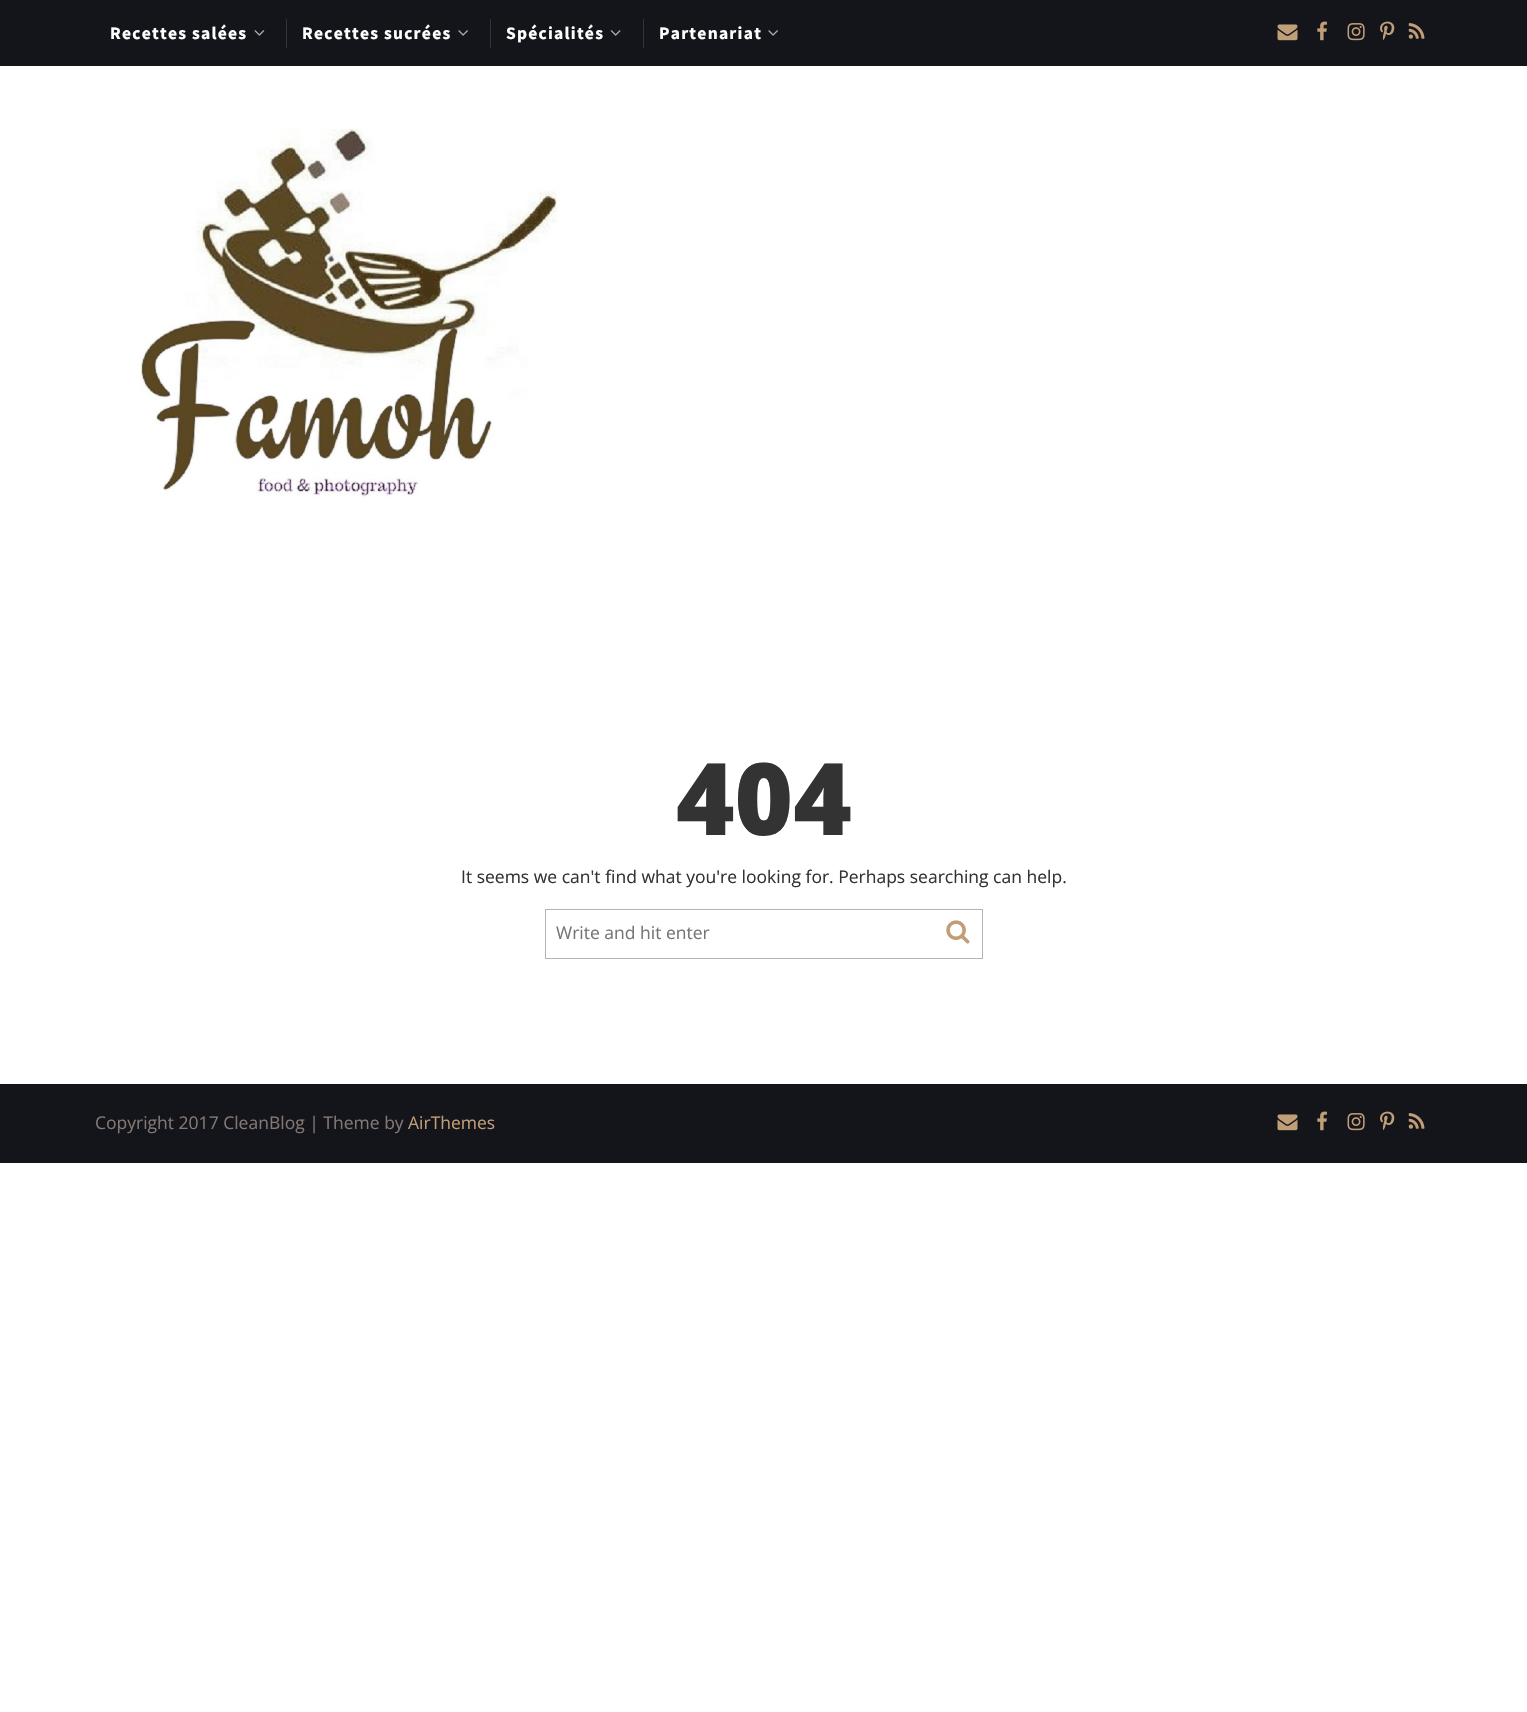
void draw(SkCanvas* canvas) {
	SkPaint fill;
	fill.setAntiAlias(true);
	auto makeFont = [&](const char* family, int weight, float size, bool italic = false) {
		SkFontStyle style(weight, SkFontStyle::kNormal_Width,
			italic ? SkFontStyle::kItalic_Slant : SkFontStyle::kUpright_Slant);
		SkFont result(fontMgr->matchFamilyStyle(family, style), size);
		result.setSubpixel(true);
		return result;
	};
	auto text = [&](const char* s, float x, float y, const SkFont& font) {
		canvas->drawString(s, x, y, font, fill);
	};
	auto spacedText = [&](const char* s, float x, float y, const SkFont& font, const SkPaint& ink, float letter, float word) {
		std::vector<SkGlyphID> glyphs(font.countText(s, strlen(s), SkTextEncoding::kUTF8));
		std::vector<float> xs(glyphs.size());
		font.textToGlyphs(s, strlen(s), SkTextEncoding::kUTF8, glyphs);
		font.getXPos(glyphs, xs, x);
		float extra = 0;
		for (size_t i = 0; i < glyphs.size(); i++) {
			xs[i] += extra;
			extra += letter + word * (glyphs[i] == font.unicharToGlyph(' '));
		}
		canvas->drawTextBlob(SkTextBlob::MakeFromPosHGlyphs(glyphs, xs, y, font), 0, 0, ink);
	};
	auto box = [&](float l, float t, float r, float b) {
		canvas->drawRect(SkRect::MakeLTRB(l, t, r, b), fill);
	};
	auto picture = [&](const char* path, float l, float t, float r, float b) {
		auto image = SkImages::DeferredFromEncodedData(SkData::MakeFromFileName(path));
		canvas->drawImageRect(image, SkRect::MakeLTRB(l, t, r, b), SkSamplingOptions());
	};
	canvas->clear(0xFFFFFFFF);
	fill.setColor(0xFF14141B);
	box(0, 0, 1527, 66);
	picture("image0.png", 254, 30, 265, 36);
	fill.setColor(0xFF333333);
	box(286, 19, 287, 48);
	picture("image1.png", 458, 30, 468, 36);
	box(490, 19, 491, 48);
	picture("image2.png", 610, 30, 621, 36);
	box(643, 19, 644, 48);
	picture("image1.png", 768, 30, 778, 36);
	picture("image3.png", 1277, 24, 1298, 41);
	picture("image4.png", 1317, 21, 1327, 41);
	picture("image5.png", 1347, 23, 1365, 41);
	picture("image6.png", 1380, 21, 1395, 41);
	picture("image7.png", 1408, 23, 1425, 39);
	picture("image8.png", 140, 128, 558, 498);
	fill.setStyle(SkPaint::kStroke_Style);
	fill.setStrokeWidth(1);
	fill.setColor(0xFFB3B3B3);
	canvas->drawRect(SkRect::MakeLTRB(545.5f, 909.5f, 982.5f, 958.5f), fill);
	picture("image9.png", 946, 920, 970, 944);
	fill.setStyle(SkPaint::kFill_Style);
	fill.setColor(0xFF14141B);
	box(0, 1084, 1527, 1163);
	picture("image3.png", 1277, 1114, 1298, 1131);
	picture("image4.png", 1317, 1111, 1327, 1131);
	picture("image5.png", 1347, 1113, 1365, 1131);
	picture("image6.png", 1380, 1111, 1395, 1131);
	picture("image7.png", 1408, 1113, 1425, 1129);
	auto font1 = makeFont("Source Sans Pro", 700, 17.5f);
	fill.setColor(0xFFFFFFFF);
	spacedText("Recettes salées", 110, 39, font1, fill, 1.25f, 0);
	spacedText("Recettes sucrées", 302, 39, font1, fill, 1.25f, 0);
	spacedText("Spécialités", 506, 39, font1, fill, 1.25f, 0);
	spacedText("Partenariat", 659, 39, font1, fill, 1.25f, 0);
	auto font2 = makeFont("Open Sans", 800, 100);
	fill.setColor(0xFF333333);
	text("404", 676, 835, font2);
	auto font3 = makeFont("Open Sans", 400, 17.5f);
	text("It seems we can't find what you're looking for. Perhaps searching can help.", 461, 883, font3);
	fill.setColor(0xFF757575);
	text("Write and hit enter", 556, 939, font3);
	fill.setColor(0xFF837874);
	text("Copyright 2017 CleanBlog | Theme by", 95, 1129, font3);
	fill.setColor(0xFFC09E77);
	text("AirThemes", 408, 1129, font3);
}
